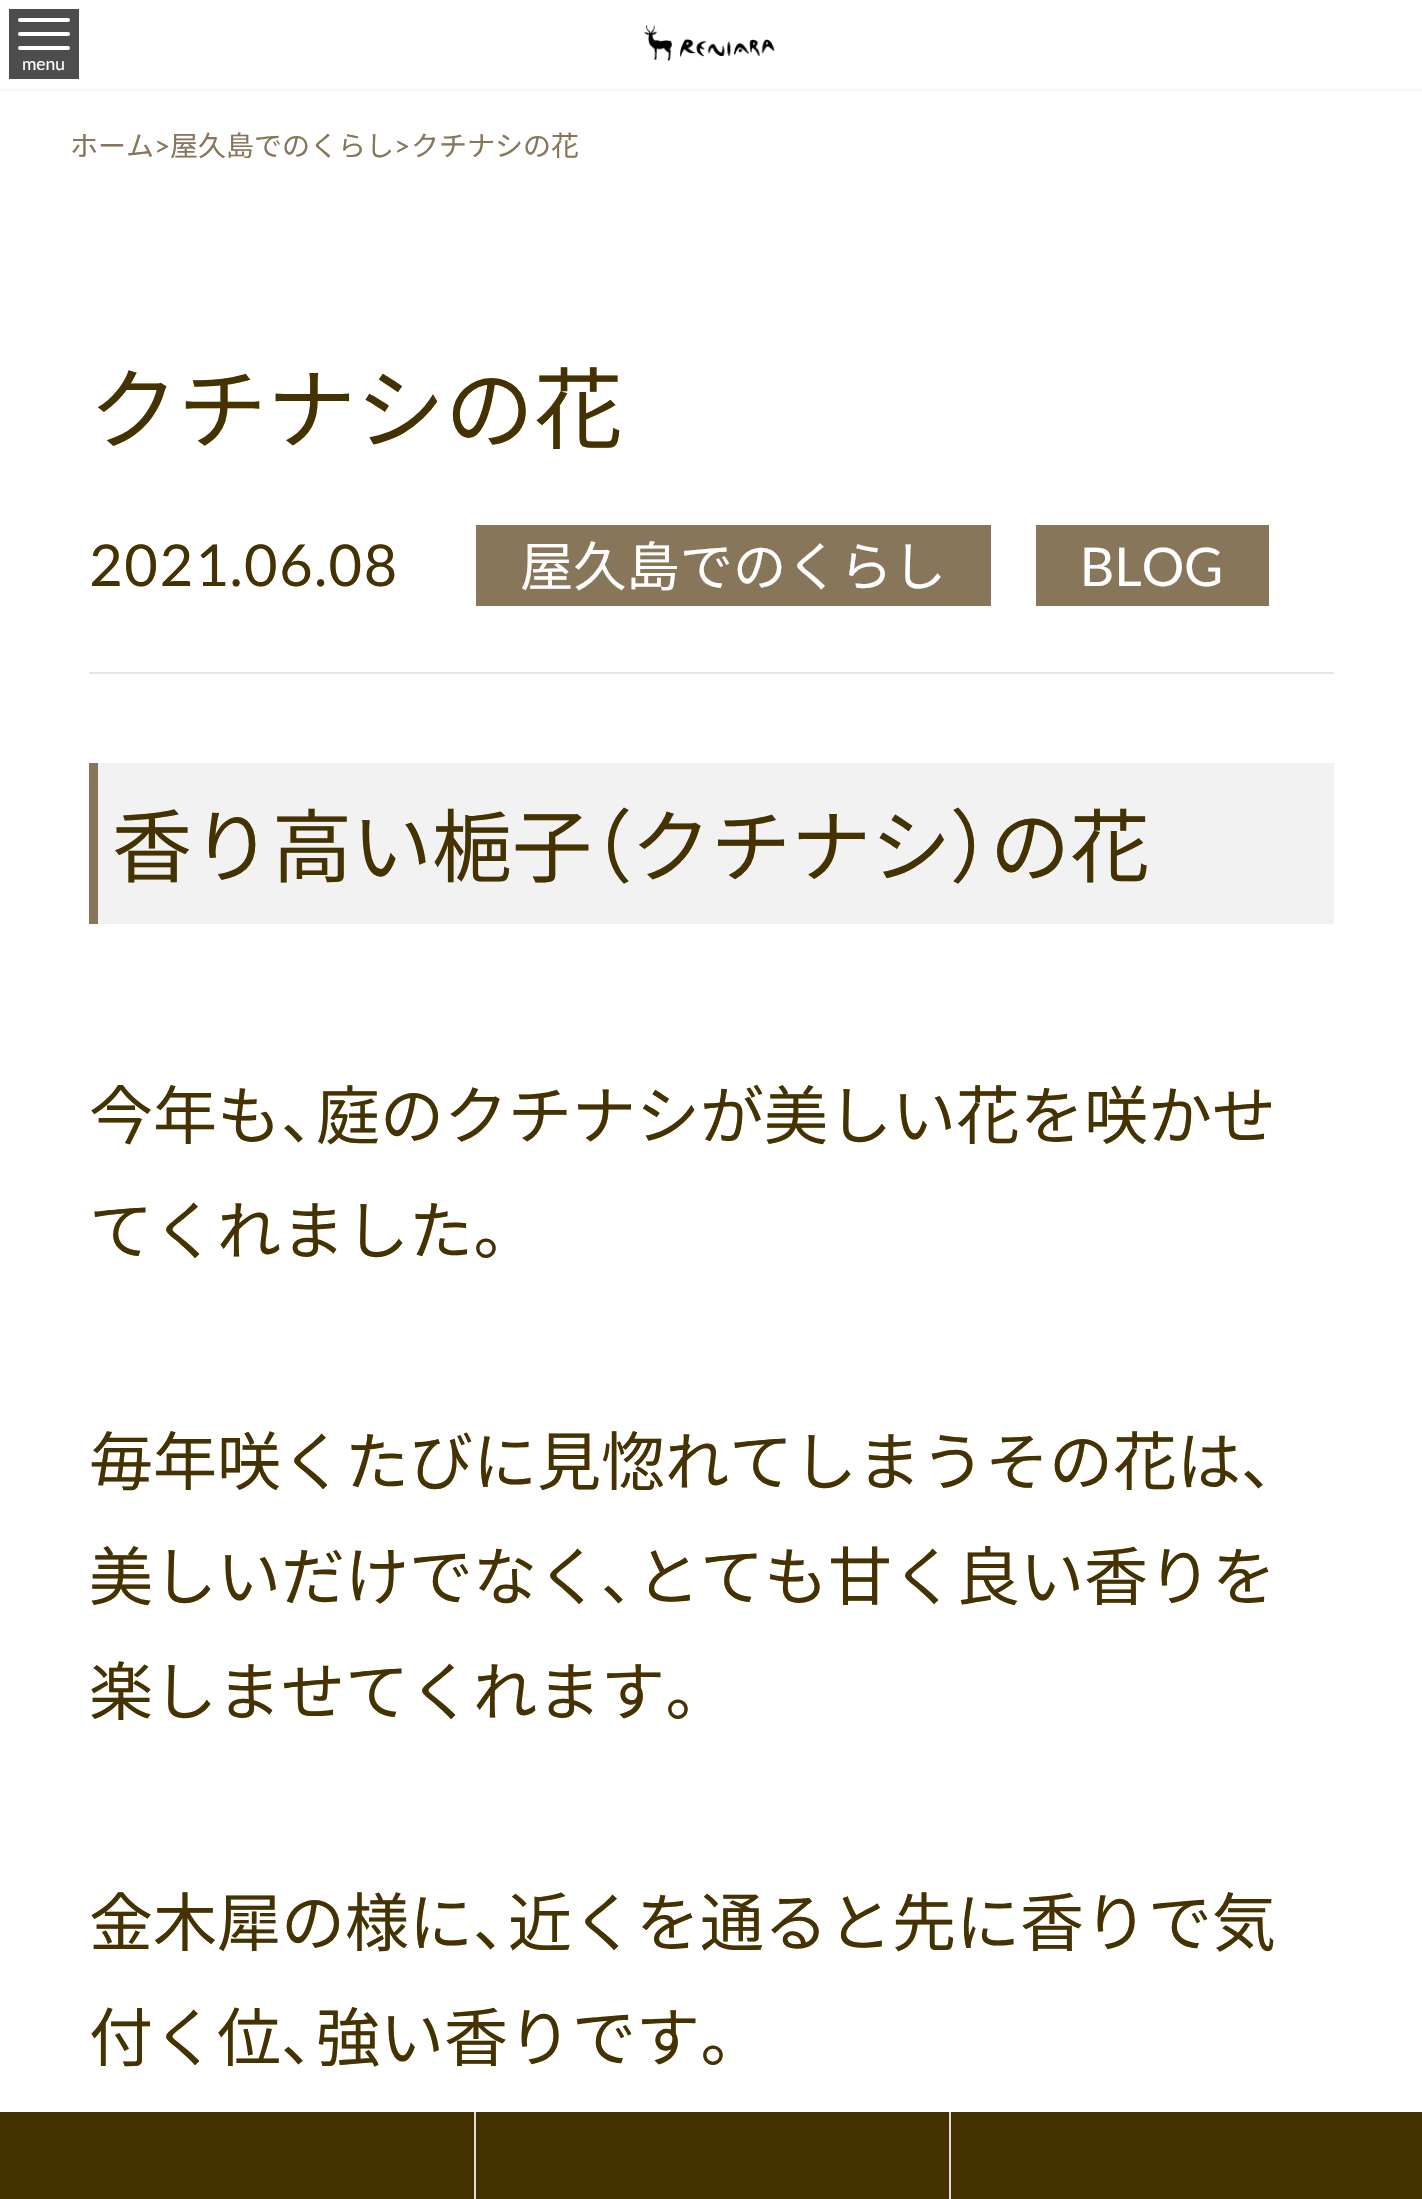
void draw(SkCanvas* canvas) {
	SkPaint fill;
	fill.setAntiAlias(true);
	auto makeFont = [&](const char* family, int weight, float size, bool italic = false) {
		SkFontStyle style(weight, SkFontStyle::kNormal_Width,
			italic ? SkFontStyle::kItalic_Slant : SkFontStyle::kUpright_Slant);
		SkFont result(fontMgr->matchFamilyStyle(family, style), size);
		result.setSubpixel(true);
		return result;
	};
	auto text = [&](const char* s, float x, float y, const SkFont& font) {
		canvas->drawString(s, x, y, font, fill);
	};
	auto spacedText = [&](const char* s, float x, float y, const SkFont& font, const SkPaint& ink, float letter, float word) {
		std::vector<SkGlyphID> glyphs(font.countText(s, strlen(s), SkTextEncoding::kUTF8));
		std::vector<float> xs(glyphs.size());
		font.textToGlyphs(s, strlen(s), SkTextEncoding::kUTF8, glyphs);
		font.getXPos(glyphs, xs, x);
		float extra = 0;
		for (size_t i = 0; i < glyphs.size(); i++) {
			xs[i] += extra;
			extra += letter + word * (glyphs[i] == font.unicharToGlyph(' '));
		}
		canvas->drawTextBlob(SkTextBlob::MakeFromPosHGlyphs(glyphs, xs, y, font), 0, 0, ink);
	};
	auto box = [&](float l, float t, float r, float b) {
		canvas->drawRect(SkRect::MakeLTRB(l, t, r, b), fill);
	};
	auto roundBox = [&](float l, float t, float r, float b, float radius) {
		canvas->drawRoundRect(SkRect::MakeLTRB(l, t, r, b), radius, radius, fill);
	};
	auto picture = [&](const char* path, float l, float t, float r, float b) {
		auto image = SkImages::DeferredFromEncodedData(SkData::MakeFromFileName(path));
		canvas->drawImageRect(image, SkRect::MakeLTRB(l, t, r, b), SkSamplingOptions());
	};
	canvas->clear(0xFFFFFFFF);
	picture("image0.png", 644, 24, 775, 61);
	fill.setColor(0xFF4D4D4D);
	box(9, 9, 79, 79);
	fill.setColor(0xFFFFFFFF);
	roundBox(18, 18, 70, 22, 2);
	roundBox(18, 32, 70, 36, 2);
	roundBox(18, 46, 70, 50, 2);
	fill.setColor(0xFFF7F7F7);
	box(0, 89, 1422, 91);
	fill.setColor(0xFFE6E6E6);
	box(89, 672, 1334, 674);
	fill.setColor(0xFF877659);
	box(476, 525, 991, 606);
	box(1036, 525, 1269, 606);
	fill.setColor(0xFFF2F2F2);
	box(98, 763, 1334, 924);
	fill.setColor(0xFF877659);
	box(89, 763, 98, 924);
	fill.setColor(0xFF443200);
	box(0, 2112, 474, 2199);
	box(476, 2112, 949, 2199);
	fill.setColor(0xFFDDDDDD);
	box(474, 2112, 476, 2199);
	fill.setColor(0xFF443200);
	box(951, 2112, 1422, 2199);
	fill.setColor(0xFFDDDDDD);
	box(949, 2112, 951, 2199);
	auto font1 = makeFont("Lato", 400, 17.5f);
	fill.setColor(0xFFFFFFFF);
	text("menu", 22, 70, font1);
	auto font2 = makeFont("Noto Sans JP", 400, 28);
	fill.setColor(0xFF877659);
	text("ホーム", 70, 156, font2);
	auto font3 = makeFont("Lato", 400, 28);
	text(">", 154, 156, font3);
	canvas->save();
	canvas->clipRect(SkRect::MakeLTRB(70, 130, 1353, 158));
	text("屋久島でのくらし", 170, 156, font2);
	canvas->restore();
	text(">", 394, 156, font3);
	canvas->save();
	canvas->clipRect(SkRect::MakeLTRB(70, 130, 1353, 158));
	text("クチナシの花", 411, 156, font2);
	canvas->restore();
	auto font4 = makeFont("Noto Sans JP", 400, 89);
	fill.setColor(0xFF443200);
	text("クチナシの花", 89, 442, font4);
	auto font5 = makeFont("Lato", 400, 57.75f);
	spacedText("2021.06.08", 89, 586, font5, fill, 1.75f, 0);
	auto font6 = makeFont("Noto Sans JP", 400, 53.25f);
	fill.setColor(0xFFFFFFFF);
	text("屋久島でのくらし", 520, 586, font6);
	auto font7 = makeFont("Lato", 400, 53.25f);
	text("BLOG", 1080, 586, font7);
	auto font8 = makeFont("Noto Sans JP", 400, 80);
	fill.setColor(0xFF443200);
	text("香り高い梔子", 112, 876, font8);
	auto font9 = makeFont("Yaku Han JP", 400, 80);
	text("（", 592, 876, font9);
	text("クチナシ", 631, 876, font8);
	text("）", 951, 876, font9);
	text("の花", 990, 876, font8);
	auto font10 = makeFont("Noto Sans JP", 400, 64);
	text("今年も", 89, 1139, font10);
	auto font11 = makeFont("Yaku Han JP", 400, 64);
	text("、", 281, 1139, font11);
	text("庭のクチナシが美しい花を咲かせ", 316, 1139, font10);
	text("てくれました", 89, 1254, font10);
	text("。", 473, 1254, font11);
	text("毎年咲くたびに見惚れてしまうその花は", 89, 1485, font10);
	text("、", 1241, 1485, font11);
	text("美しいだけでなく", 89, 1600, font10);
	text("、", 601, 1600, font11);
	text("とても甘く良い香りを", 636, 1600, font10);
	text("楽しませてくれます", 89, 1715, font10);
	text("。", 665, 1715, font11);
	text("金木犀の様に", 89, 1946, font10);
	text("、", 473, 1946, font11);
	text("近くを通ると先に香りで気", 508, 1946, font10);
	text("付く位", 89, 2061, font10);
	text("、", 281, 2061, font11);
	text("強い香りです", 316, 2061, font10);
	text("。", 700, 2061, font11);
}
